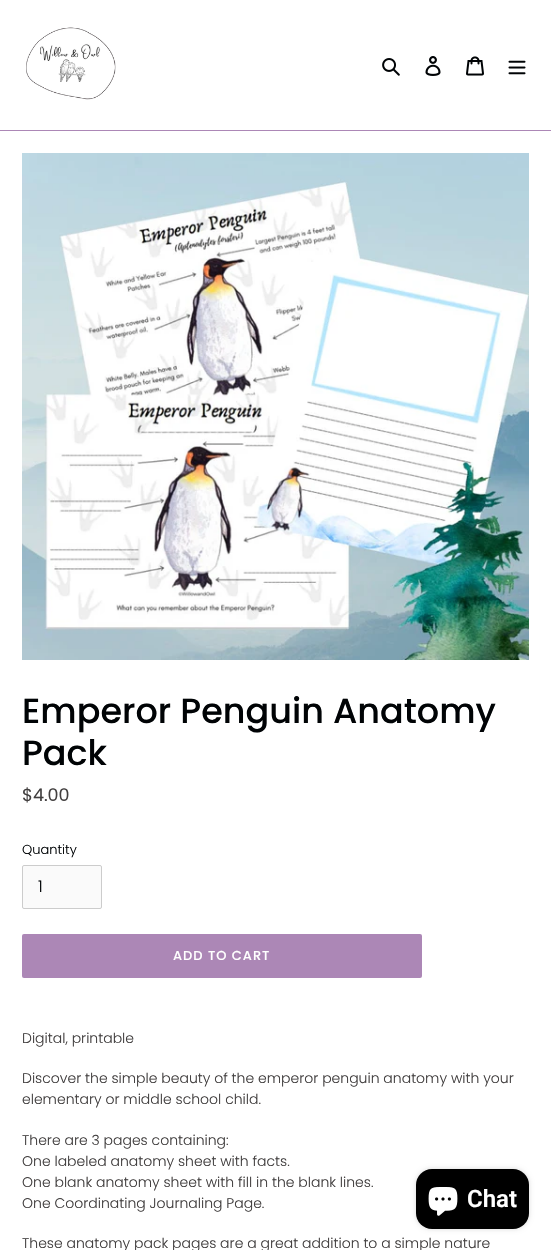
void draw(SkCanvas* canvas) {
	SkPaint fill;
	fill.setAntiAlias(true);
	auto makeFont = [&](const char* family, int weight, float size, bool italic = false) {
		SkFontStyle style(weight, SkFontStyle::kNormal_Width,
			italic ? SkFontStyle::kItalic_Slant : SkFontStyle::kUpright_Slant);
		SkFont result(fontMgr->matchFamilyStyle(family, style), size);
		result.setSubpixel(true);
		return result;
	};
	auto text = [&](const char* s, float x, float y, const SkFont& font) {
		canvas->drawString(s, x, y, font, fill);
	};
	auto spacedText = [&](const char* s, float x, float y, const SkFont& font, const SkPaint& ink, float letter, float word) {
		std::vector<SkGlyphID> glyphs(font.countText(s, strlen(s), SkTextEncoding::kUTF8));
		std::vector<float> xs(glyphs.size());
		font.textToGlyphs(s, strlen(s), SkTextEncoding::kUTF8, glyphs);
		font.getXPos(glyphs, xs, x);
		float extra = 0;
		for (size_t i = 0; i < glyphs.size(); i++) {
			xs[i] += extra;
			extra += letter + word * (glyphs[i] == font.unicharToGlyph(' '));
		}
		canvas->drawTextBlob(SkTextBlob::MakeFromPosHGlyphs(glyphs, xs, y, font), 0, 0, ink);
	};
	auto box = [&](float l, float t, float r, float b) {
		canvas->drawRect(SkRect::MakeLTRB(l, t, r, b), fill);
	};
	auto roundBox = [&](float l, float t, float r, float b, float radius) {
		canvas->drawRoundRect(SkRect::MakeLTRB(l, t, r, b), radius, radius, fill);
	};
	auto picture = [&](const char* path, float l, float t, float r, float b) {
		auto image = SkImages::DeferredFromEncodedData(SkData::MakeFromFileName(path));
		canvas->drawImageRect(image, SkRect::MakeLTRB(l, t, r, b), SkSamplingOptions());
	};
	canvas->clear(0xFFFFFFFF);
	fill.setColor(0xFFAC87B6);
	box(0, 130, 551, 131);
	picture("image0.png", 26, 27, 116, 100);
	picture("image1.png", 382, 58, 400, 76);
	picture("image2.png", 425, 56, 441, 76);
	picture("image3.png", 466, 56, 484, 76);
	picture("image4.png", 508, 60, 526, 75);
	picture("image5.png", 22, 153, 529, 660);
	fill.setColor(0xFFFAFAFA);
	canvas->drawRoundRect(SkRect::MakeLTRB(22.5f, 865.5f, 101.5f, 908.5f), 1.5f, 1.5f, fill);
	fill.setStyle(SkPaint::kStroke_Style);
	fill.setStrokeWidth(1);
	fill.setColor(0xFFCCCCCC);
	canvas->drawRoundRect(SkRect::MakeLTRB(22.5f, 865.5f, 101.5f, 908.5f), 1.5f, 1.5f, fill);
	fill.setStyle(SkPaint::kFill_Style);
	fill.setColor(0xFFAC87B6);
	roundBox(22, 934, 422, 978, 2);
	fill.setColor(0x26000000);
	fill.setMaskFilter(SkMaskFilter::MakeBlur(kNormal_SkBlurStyle, 2.5f));
	canvas->drawRoundRect(SkRect::MakeLTRB(416, 1169, 529, 1229), 16, 16, fill);
	fill.setMaskFilter(nullptr);
	fill.setColor(0xFF000000);
	roundBox(416, 1169, 529, 1229, 16);
	picture("image6.png", 428, 1187, 458, 1216);
	auto font1 = makeFont("Poppins", 500, 35);
	fill.setColor(0xFF000305);
	text("Emperor Penguin Anatomy", 22, 723, font1);
	text("Pack", 22, 765, font1);
	auto font2 = makeFont("Poppins", 400, 17.5f);
	fill.setColor(0xFF423F3F);
	text("$4.00", 22, 801, font2);
	auto font3 = makeFont("Poppins", 300, 13);
	fill.setColor(0xFF000305);
	text("Quantity", 22, 854, font3);
	auto font4 = makeFont("Poppins", 300, 16);
	text("1", 38, 892, font4);
	auto font5 = makeFont("Poppins", 500, 13);
	fill.setColor(0xFFFFFFFF);
	spacedText("ADD TO CART", 173, 960, font5, fill, 1, 0);
	auto font6 = makeFont("Poppins", 300, 14);
	fill.setColor(0xFF423F3F);
	text("Digital, printable", 22, 1043, font6);
	text("Discover the simple beauty of the emperor penguin anatomy with your", 22, 1083, font6);
	text("elementary or middle school child.", 22, 1104, font6);
	text("There are 3 pages containing:", 22, 1145, font6);
	text("One labeled anatomy sheet with facts.", 22, 1166, font6);
	text("One blank anatomy sheet with fill in the blank lines.", 22, 1187, font6);
	text("One Coordinating Journaling Page.", 22, 1208, font6);
	text("These anatomy pack pages are a great addition to a simple nature", 22, 1248, font6);
	auto font7 = makeFont("Roboto", 600, 24);
	fill.setColor(0xFFFFFFFF);
	text("Chat", 467, 1207, font7);
}
